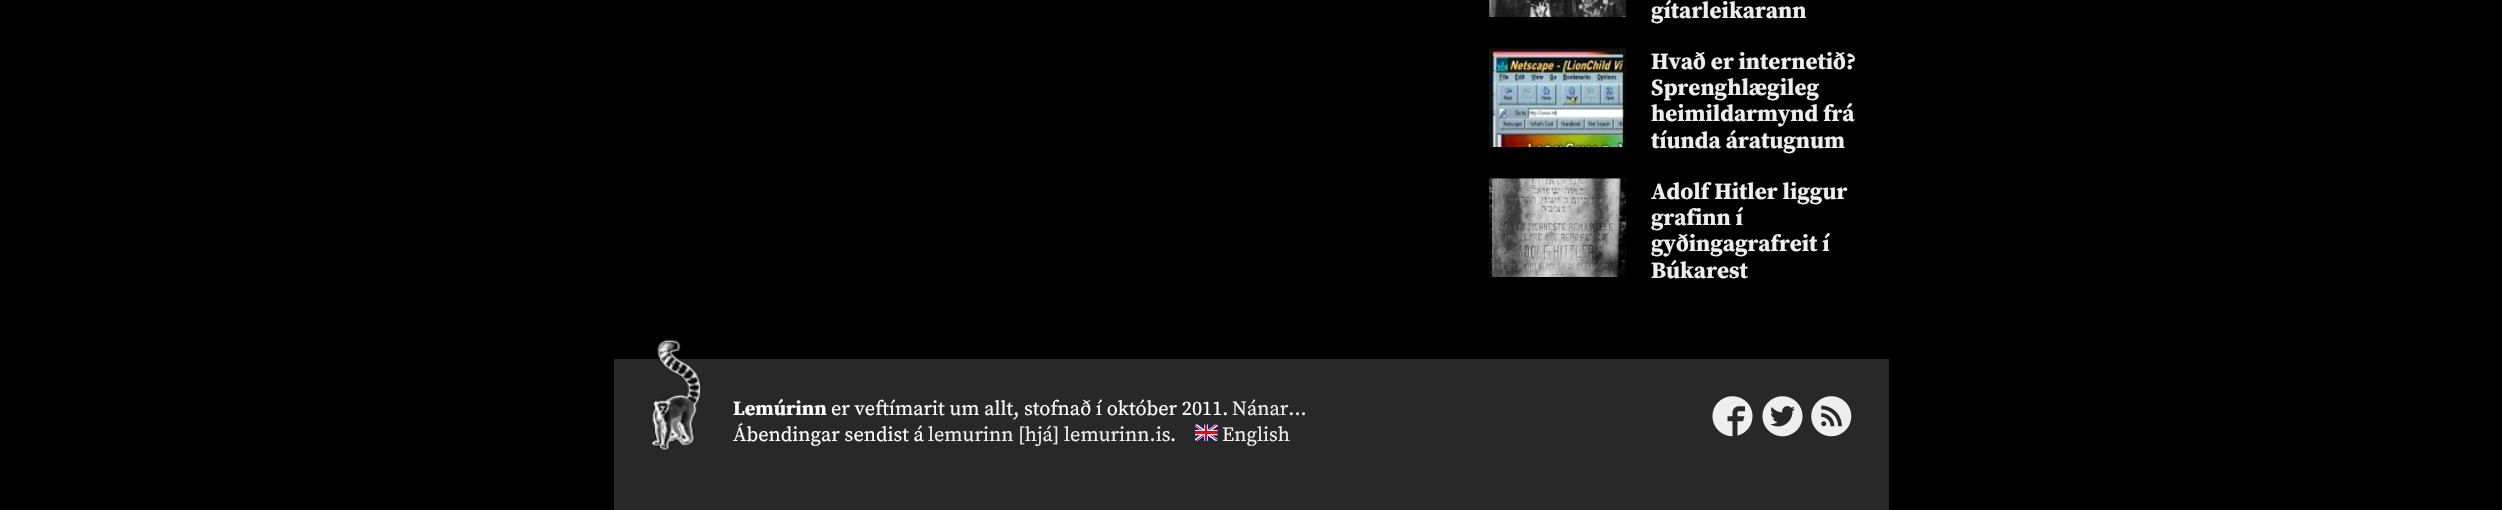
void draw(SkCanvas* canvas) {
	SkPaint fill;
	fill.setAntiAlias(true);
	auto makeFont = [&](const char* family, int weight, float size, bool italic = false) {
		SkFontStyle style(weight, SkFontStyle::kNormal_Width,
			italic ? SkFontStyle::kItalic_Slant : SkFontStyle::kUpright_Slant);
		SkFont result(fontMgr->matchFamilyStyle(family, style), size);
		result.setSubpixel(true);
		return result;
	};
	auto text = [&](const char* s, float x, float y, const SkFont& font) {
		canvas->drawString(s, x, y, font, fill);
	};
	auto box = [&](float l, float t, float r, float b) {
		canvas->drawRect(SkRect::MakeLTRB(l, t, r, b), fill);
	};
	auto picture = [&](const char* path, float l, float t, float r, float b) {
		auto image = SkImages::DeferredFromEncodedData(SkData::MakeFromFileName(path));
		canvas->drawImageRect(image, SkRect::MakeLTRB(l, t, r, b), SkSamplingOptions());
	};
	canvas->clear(0xFF000000);
	picture("image0.png", 1488, 0, 1627, 17);
	picture("image1.png", 1489, 48, 1626, 147);
	picture("image2.png", 1488, 178, 1627, 277);
	fill.setColor(0xFF282828);
	box(614, 359, 1889, 510);
	picture("image3.png", 651, 339, 702, 451);
	picture("image4.png", 1195, 424, 1218, 441);
	picture("image5.png", 1712, 396, 1753, 437);
	picture("image6.png", 1762, 396, 1803, 437);
	picture("image7.png", 1811, 396, 1852, 437);
	auto font1 = makeFont("Source Serif Pro", 700, 23.1f);
	fill.setColor(0xFFEEEEEE);
	text("gítarleikarann", 1651, 18, font1);
	text("Hvað er internetið?", 1651, 69, font1);
	text("Sprenghlægileg", 1651, 95, font1);
	text("heimildarmynd frá", 1651, 121, font1);
	text("tíunda áratugnum", 1651, 148, font1);
	text("Adolf Hitler liggur", 1651, 199, font1);
	text("grafinn í", 1651, 225, font1);
	text("gyðingagrafreit í", 1651, 251, font1);
	text("Búkarest", 1651, 278, font1);
	auto font2 = makeFont("Source Serif Pro", 700, 20.25f);
	fill.setColor(0xFFFFFFFF);
	text("Lemúrinn", 733, 415, font2);
	auto font3 = makeFont("Source Serif Pro", 400, 20.25f);
	text("er veftímarit um allt, stofnað í október 2011.", 831, 415, font3);
	fill.setColor(0xFFEEEEEE);
	text("Nánar...", 1232, 415, font3);
	fill.setColor(0xFFFFFFFF);
	text("Ábendingar sendist á", 733, 441, font3);
	fill.setColor(0xFFEEEEEE);
	text("lemurinn [hjá] lemurinn.is", 928, 441, font3);
	fill.setColor(0xFFFFFFFF);
	text(".", 1170, 441, font3);
	fill.setColor(0xFFEEEEEE);
	text("English", 1222, 441, font3);
}
